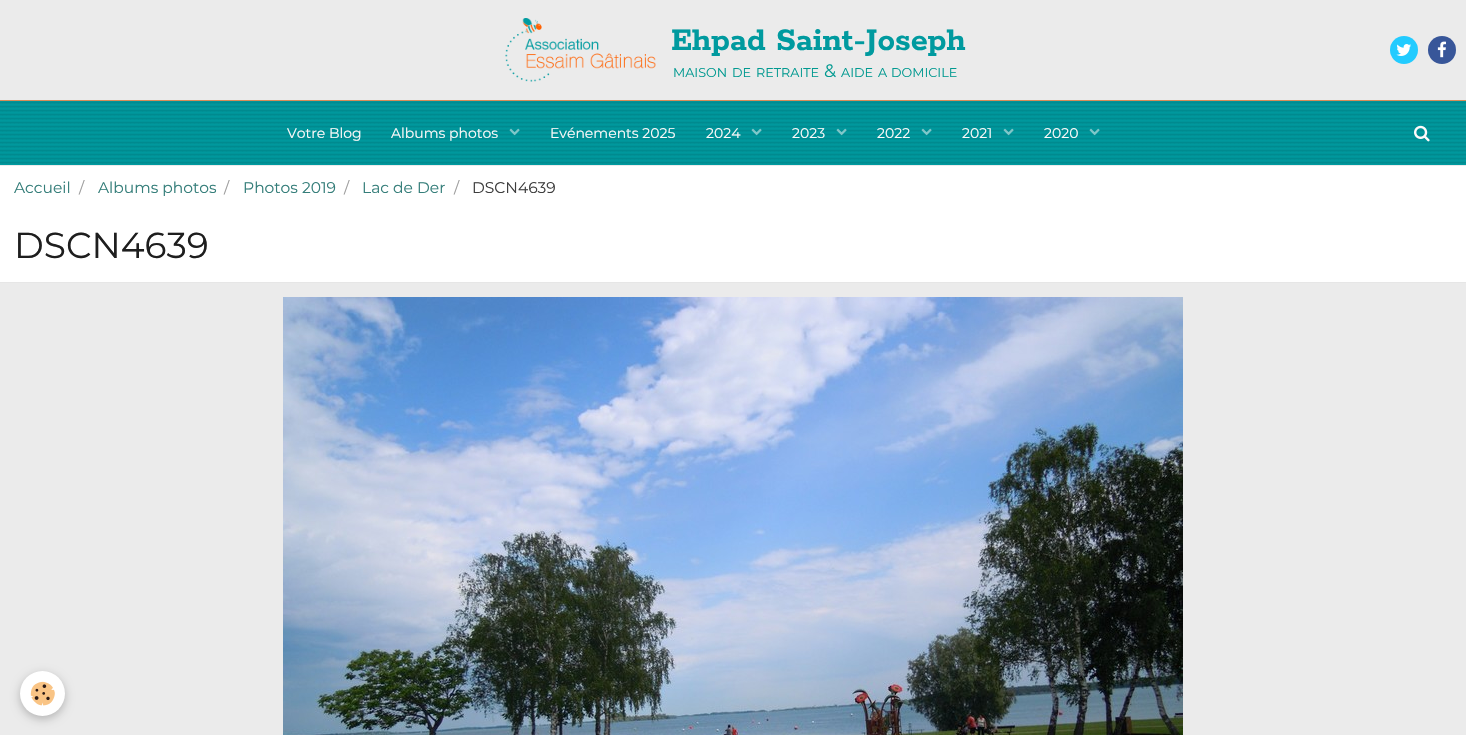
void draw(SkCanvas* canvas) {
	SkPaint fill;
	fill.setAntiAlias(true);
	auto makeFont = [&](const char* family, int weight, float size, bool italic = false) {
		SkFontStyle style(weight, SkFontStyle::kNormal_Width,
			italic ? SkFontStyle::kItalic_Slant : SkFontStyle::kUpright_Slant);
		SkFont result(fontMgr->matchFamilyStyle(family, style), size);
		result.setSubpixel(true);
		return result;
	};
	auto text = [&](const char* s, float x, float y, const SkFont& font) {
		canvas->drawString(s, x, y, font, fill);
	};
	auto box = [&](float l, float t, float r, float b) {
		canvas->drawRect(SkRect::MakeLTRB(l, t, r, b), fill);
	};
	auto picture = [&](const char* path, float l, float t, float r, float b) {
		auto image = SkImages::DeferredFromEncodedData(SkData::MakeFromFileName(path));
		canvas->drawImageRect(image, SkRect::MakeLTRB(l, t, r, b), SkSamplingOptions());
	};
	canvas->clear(0xFFEBEBEB);
	fill.setColor(0xFFD78D58);
	box(0, 100, 1466, 101);
	picture("image0.png", 505, 18, 656, 82);
	fill.setColor(0xFF22CBFF);
	canvas->drawCircle(1404, 50, 14, fill);
	picture("image1.png", 1396, 44, 1411, 56);
	fill.setColor(0xFF385699);
	canvas->drawCircle(1442, 50, 14, fill);
	picture("image2.png", 1437, 41, 1446, 58);
	fill.setColor(0xFF009A9F);
	box(0, 101, 1466, 165);
	picture("image3.png", 0, 101, 1466, 164);
	picture("image4.png", 509, 128, 520, 136);
	picture("image5.png", 751, 128, 762, 136);
	picture("image6.png", 836, 128, 847, 136);
	picture("image4.png", 921, 128, 932, 136);
	picture("image5.png", 1003, 128, 1014, 136);
	picture("image4.png", 1089, 128, 1100, 136);
	picture("image7.png", 1414, 125, 1430, 142);
	fill.setColor(0xFFFFFFFF);
	box(0, 166, 1466, 282);
	fill.setColor(0xFFE6E6E6);
	box(0, 282, 1466, 283);
	picture("image8.png", 283, 297, 1183, 735);
	fill.setColor(0x3D000000);
	fill.setMaskFilter(SkMaskFilter::MakeBlur(kNormal_SkBlurStyle, 5));
	canvas->drawRoundRect(SkRect::MakeLTRB(20, 674, 65, 719), 22.5f, 22.5f, fill);
	fill.setMaskFilter(nullptr);
	fill.setColor(0xFFFFFFFF);
	canvas->drawCircle(42.5f, 693.5f, 22.5f, fill);
	picture("image9.png", 30, 681, 55, 706);
	auto font1 = makeFont("Rokkitt", 700, 35);
	fill.setColor(0xFF009A9F);
	text("Ehpad Saint-Joseph", 671, 50, font1);
	auto font2 = makeFont("Montserrat", 400, 12.75f);
	fill.setColor(0xFF009990);
	text("MAISON", 673, 77, font2);
	text("DE", 732, 77, font2);
	text("RETRAITE", 756, 77, font2);
	auto font3 = makeFont("Montserrat", 400, 18);
	text("&", 824, 77, font3);
	text("AIDE", 841, 77, font2);
	text("A", 878, 77, font2);
	text("DOMICILE", 891, 77, font2);
	auto font4 = makeFont("Montserrat", 400, 14);
	fill.setColor(0xFFFFFAFA);
	text("Votre Blog", 287, 138, font4);
	text("Albums photos", 391, 138, font4);
	text("Evénements 2025", 550, 138, font4);
	text("2024", 706, 138, font4);
	text("2023", 792, 138, font4);
	text("2022", 877, 138, font4);
	text("2021", 962, 138, font4);
	text("2020", 1044, 138, font4);
	auto font5 = makeFont("Montserrat", 400, 15.5f);
	fill.setColor(0xFF357E7A);
	text("Accueil", 14, 193, font5);
	fill.setColor(0xFF9E9E9E);
	text("/", 79, 193, font5);
	fill.setColor(0xFF357E7A);
	text("Albums photos", 98, 193, font5);
	fill.setColor(0xFF9E9E9E);
	text("/", 224, 193, font5);
	fill.setColor(0xFF357E7A);
	text("Photos 2019", 243, 193, font5);
	fill.setColor(0xFF9E9E9E);
	text("/", 344, 193, font5);
	fill.setColor(0xFF357E7A);
	text("Lac de Der", 362, 193, font5);
	fill.setColor(0xFF9E9E9E);
	text("/", 454, 193, font5);
	fill.setColor(0xFF3E3E3E);
	text("DSCN4639", 472, 193, font5);
	auto font6 = makeFont("Montserrat", 400, 36);
	fill.setColor(0xFF1E1E1E);
	text("DSCN4639", 14, 258, font6);
}
